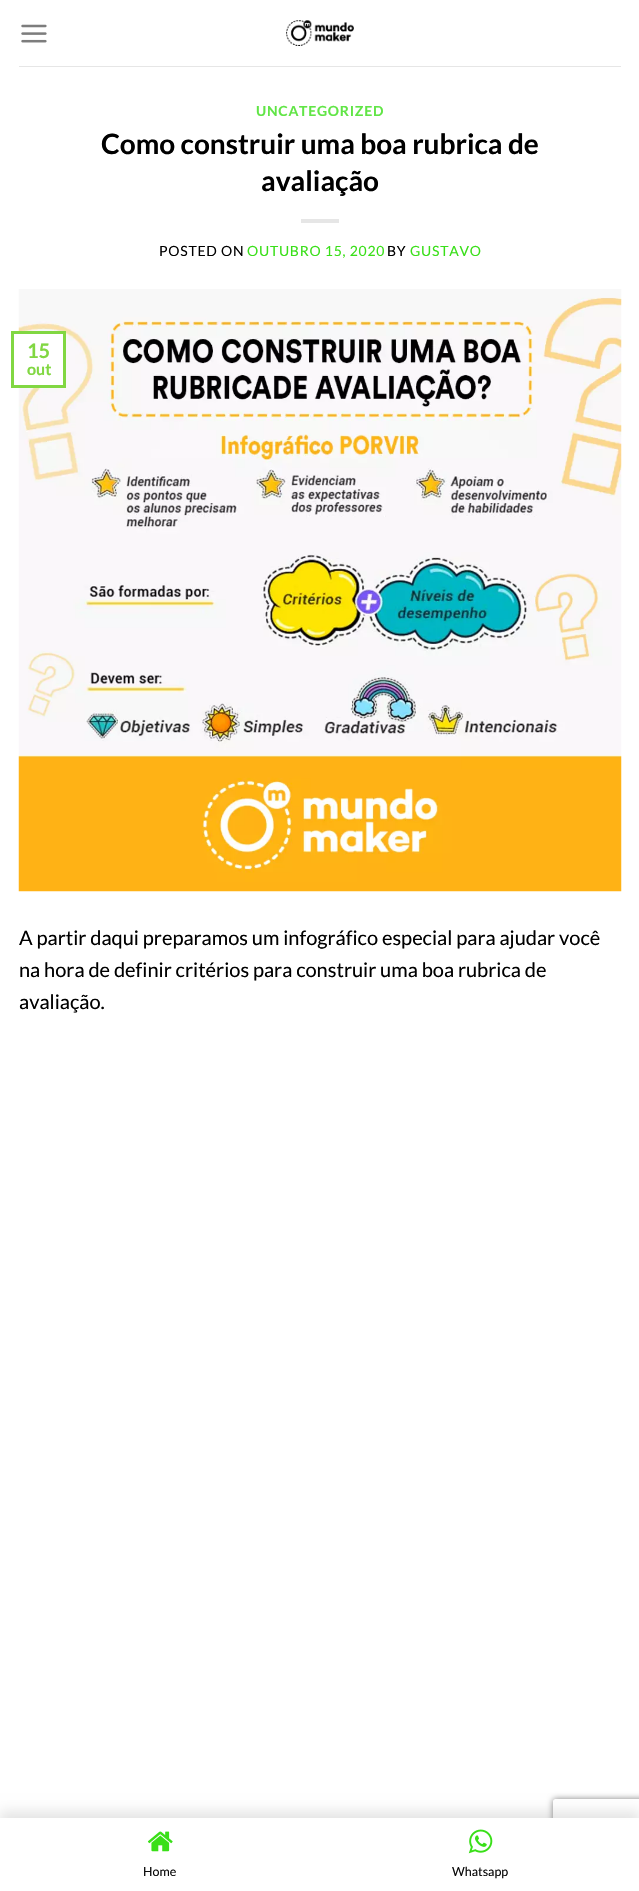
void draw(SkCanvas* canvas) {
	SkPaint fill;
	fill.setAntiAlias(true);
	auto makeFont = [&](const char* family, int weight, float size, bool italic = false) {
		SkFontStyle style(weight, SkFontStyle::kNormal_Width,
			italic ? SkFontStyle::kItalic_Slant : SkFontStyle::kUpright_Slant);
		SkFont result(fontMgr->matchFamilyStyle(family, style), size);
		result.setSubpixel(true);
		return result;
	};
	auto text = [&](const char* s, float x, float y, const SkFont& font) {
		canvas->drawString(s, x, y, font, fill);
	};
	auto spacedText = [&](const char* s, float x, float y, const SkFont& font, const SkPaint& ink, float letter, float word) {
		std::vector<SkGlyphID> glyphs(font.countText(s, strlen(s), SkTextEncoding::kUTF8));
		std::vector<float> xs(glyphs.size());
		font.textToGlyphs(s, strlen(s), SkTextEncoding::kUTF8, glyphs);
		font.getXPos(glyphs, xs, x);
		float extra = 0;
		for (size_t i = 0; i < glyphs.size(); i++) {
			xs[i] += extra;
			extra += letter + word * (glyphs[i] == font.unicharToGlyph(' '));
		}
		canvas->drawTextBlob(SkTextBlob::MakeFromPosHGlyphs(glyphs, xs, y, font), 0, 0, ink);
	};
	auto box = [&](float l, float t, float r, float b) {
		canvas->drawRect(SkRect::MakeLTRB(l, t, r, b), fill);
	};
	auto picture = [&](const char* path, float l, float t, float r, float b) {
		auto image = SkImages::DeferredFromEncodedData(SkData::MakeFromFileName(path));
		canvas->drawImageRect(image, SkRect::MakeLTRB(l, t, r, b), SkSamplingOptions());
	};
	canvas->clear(0xFFFFFFFF);
	picture("image0.png", 21, 24, 47, 43);
	picture("image1.png", 286, 20, 354, 46);
	fill.setColor(0xFFE6E6E6);
	box(19, 66, 621, 67);
	box(301, 219, 339, 223);
	picture("image2.png", 18, 289, 622, 892);
	fill.setColor(0xFFFFFFFF);
	box(18, 334, 63, 385);
	fill.setStyle(SkPaint::kStroke_Style);
	fill.setStrokeWidth(3);
	fill.setColor(0xFF81D742);
	canvas->drawRect(SkRect::MakeLTRB(12.5f, 332.5f, 64.5f, 386.5f), fill);
	fill.setStyle(SkPaint::kFill_Style);
	fill.setColor(0x1A000000);
	fill.setMaskFilter(SkMaskFilter::MakeBlur(kNormal_SkBlurStyle, 6));
	canvas->drawRect(SkRect::MakeLTRB(0, 1811, 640, 1885), fill);
	fill.setMaskFilter(nullptr);
	canvas->save();
	canvas->clipPath(SkPathBuilder(SkPathFillType::kEvenOdd).moveTo(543, 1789).lineTo(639, 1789).lineTo(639, 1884).lineTo(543, 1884).close().moveTo(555.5f, 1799).lineTo(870.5f, 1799).cubicTo(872, 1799, 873, 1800, 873, 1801.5f).lineTo(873, 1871.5f).cubicTo(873, 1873, 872, 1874, 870.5f, 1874).lineTo(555.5f, 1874).cubicTo(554, 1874, 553, 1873, 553, 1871.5f).lineTo(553, 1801.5f).cubicTo(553, 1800, 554, 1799, 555.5f, 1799).close().detach(), true);
	fill.setColor(0xFF808080);
	fill.setMaskFilter(SkMaskFilter::MakeBlur(kNormal_SkBlurStyle, 3));
	canvas->drawRoundRect(SkRect::MakeLTRB(553, 1799, 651, 1874), 2.5f, 2.5f, fill);
	fill.setMaskFilter(nullptr);
	canvas->restore();
	fill.setColor(0xFFFFFFFF);
	box(0, 1818, 639, 1891);
	picture("image3.png", 147, 1831, 173, 1852);
	picture("image4.png", 468, 1829, 493, 1854);
	auto font1 = makeFont("Lato", 700, 14);
	fill.setColor(0xFF61E546);
	spacedText("UNCATEGORIZED", 256, 116, font1, fill, 0.75f, 0);
	auto font2 = makeFont("Lato", 700, 28);
	fill.setColor(0xFF000000);
	text("Como construir uma boa rubrica de", 101, 154, font2);
	text("avaliação", 261, 191, font2);
	auto font3 = makeFont("Lato", 400, 14);
	spacedText("POSTED ON", 159, 256, font3, fill, 0.75f, 0);
	fill.setColor(0xFF39DF18);
	spacedText("OUTUBRO 15, 2020", 247, 256, font3, fill, 0.75f, 0);
	fill.setColor(0xFF000000);
	spacedText("BY", 387, 256, font3, fill, 0.75f, 0);
	fill.setColor(0xFF39DF18);
	spacedText("GUSTAVO", 410, 256, font3, fill, 0.75f, 0);
	auto font4 = makeFont("Lato", 700, 20);
	fill.setColor(0xFF81D742);
	text("15", 27, 358, font4);
	auto font5 = makeFont("Lato", 700, 16);
	text("out", 27, 375, font5);
	auto font6 = makeFont("Lato", 400, 20);
	fill.setColor(0xFF000000);
	text("A partir daqui preparamos um infográfico especial para ajudar você", 19, 945, font6);
	text("na hora de definir critérios para construir uma boa rubrica de", 19, 977, font6);
	text("avaliação.", 19, 1009, font6);
	auto font7 = makeFont("Lato", 400, 12.5f);
	fill.setColor(0xFF0A0A0A);
	text("Home", 143, 1876, font7);
	text("Whatsapp", 452, 1876, font7);
}
